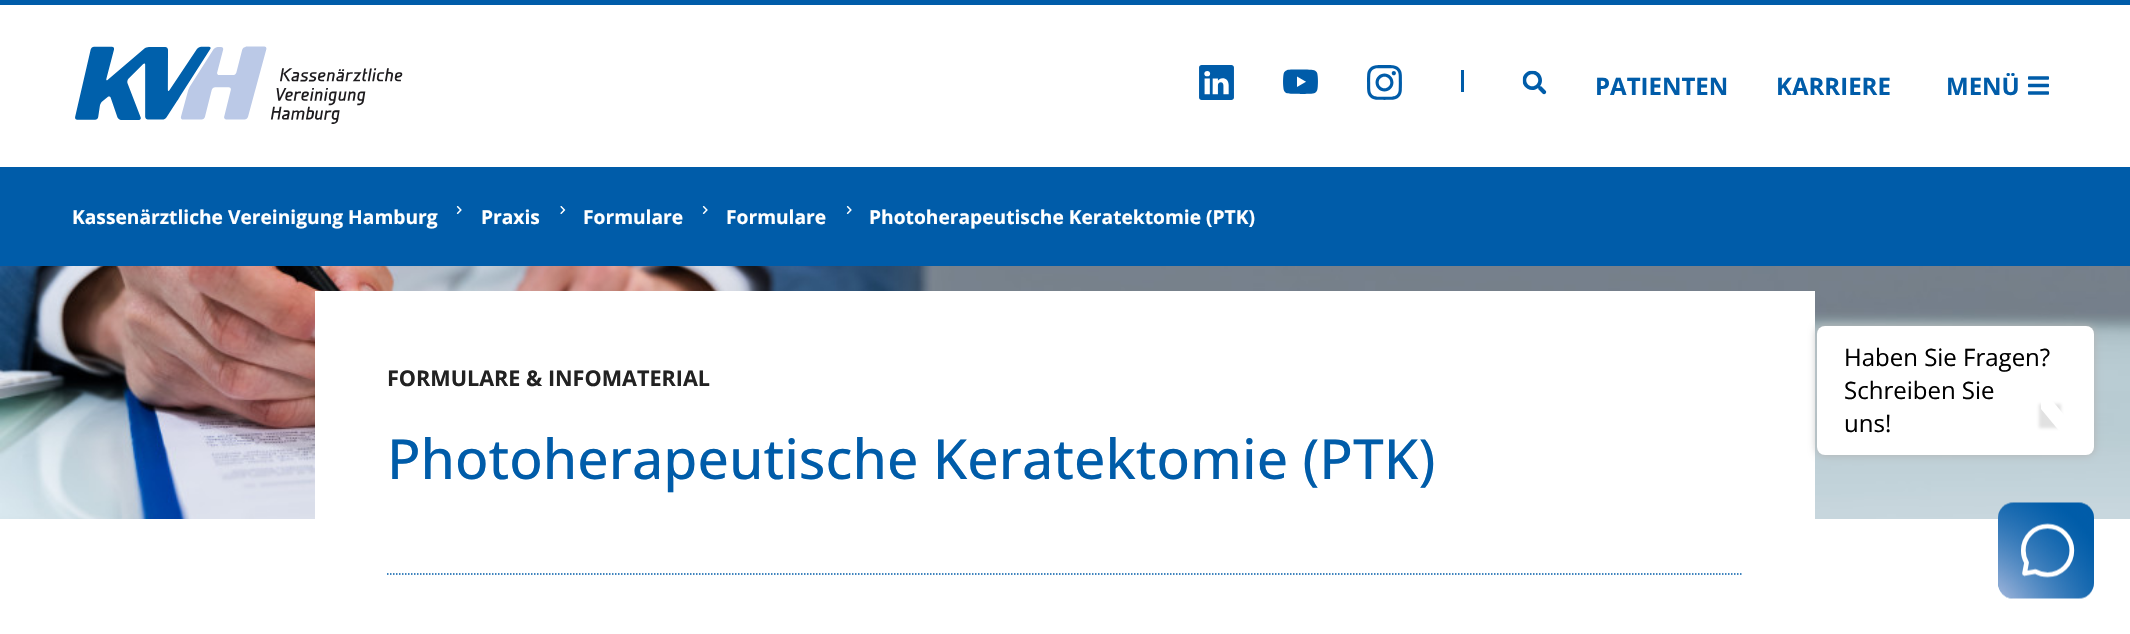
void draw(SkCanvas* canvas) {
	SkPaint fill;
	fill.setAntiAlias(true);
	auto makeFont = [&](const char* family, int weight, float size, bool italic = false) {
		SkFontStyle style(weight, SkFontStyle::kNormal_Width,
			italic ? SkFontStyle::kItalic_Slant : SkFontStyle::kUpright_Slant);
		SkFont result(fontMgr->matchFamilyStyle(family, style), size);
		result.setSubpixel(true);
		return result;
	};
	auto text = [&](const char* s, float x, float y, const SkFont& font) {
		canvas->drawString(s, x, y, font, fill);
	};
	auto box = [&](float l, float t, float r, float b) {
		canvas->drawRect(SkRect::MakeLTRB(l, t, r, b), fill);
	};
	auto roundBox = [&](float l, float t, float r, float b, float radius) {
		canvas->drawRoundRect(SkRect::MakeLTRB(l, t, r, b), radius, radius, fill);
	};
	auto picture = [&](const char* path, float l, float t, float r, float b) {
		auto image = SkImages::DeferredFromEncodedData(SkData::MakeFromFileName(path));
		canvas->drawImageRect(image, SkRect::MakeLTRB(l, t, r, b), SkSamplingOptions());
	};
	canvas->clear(0xFFFFFFFF);
	fill.setColor(0xFF005CA9);
	box(0, 0, 2130, 5);
	picture("image0.png", 75, 46, 403, 124);
	picture("image1.png", 1199, 65, 1234, 100);
	picture("image2.png", 1283, 69, 1318, 94);
	picture("image3.png", 1367, 65, 1402, 100);
	box(1461, 70, 1464, 92);
	picture("image4.png", 1522, 70, 1547, 95);
	picture("image5.png", 2028, 76, 2049, 95);
	box(0, 167, 2130, 266);
	picture("image6.png", 456, 206, 462, 214);
	picture("image7.png", 560, 206, 566, 214);
	picture("image6.png", 702, 206, 708, 214);
	picture("image6.png", 846, 206, 852, 214);
	picture("image8.png", 0, 266, 2130, 519);
	fill.setColor(0xFFFFFFFF);
	box(315, 291, 1815, 519);
	fill.setStyle(SkPaint::kStroke_Style);
	fill.setStrokeWidth(1.5f);
	fill.setColor(0xFF005CA9);
	fill.setPathEffect(SkDashPathEffect::Make({{1.5f, 1.5f}}, 0));
	canvas->drawPath(SkPathBuilder().moveTo(387, 574).lineTo(1743, 574).detach(), fill);
	fill.setPathEffect(nullptr);
	fill.setStyle(SkPaint::kFill_Style);
	fill.setColor(0xFFB2B2B2);
	fill.setMaskFilter(SkMaskFilter::MakeBlur(kNormal_SkBlurStyle, 4.5f));
	canvas->drawRoundRect(SkRect::MakeLTRB(1817, 326, 2094, 455), 8, 8, fill);
	fill.setMaskFilter(nullptr);
	fill.setColor(0xFFFFFFFF);
	roundBox(1817, 326, 2094, 455, 8);
	fill.setColor(0x66B3B3B3);
	fill.setMaskFilter(SkMaskFilter::MakeBlur(kNormal_SkBlurStyle, 1.5f));
	canvas->drawRect(SkRect::MakeLTRB(2039, 404, 2061, 428), fill);
	fill.setMaskFilter(nullptr);
	fill.setColor(0xFFFFFFFF);
	canvas->drawPath(SkPathBuilder().moveTo(2041, 409).lineTo(2041, 387).lineTo(2065, 416).lineTo(2065, 438).close().detach(), fill);
	picture("image9.png", 1998, 502, 2094, 599);
	auto font1 = makeFont("Open Sans", 700, 24);
	fill.setColor(0xFF005CA9);
	text("PATIENTEN", 1595, 95, font1);
	text("KARRIERE", 1776, 95, font1);
	text("MENÜ", 1946, 95, font1);
	auto font2 = makeFont("Open Sans", 700, 19.2f);
	fill.setColor(0xFFFFFFFF);
	text("Kassenärztliche Vereinigung Hamburg", 72, 224, font2);
	text("Praxis", 481, 224, font2);
	text("Formulare", 583, 224, font2);
	text("Formulare", 726, 224, font2);
	text("Photoherapeutische Keratektomie (PTK)", 869, 224, font2);
	auto font3 = makeFont("Open Sans", 700, 21.6f);
	fill.setColor(0xFF222222);
	text("FORMULARE & INFOMATERIAL", 387, 386, font3);
	auto font4 = makeFont("Open Sans", 500, 55.25f);
	fill.setColor(0xFF005CA9);
	text("Photoherapeutische Keratektomie (PTK)", 387, 479, font4);
	auto font5 = makeFont("Open Sans", 400, 24);
	fill.setColor(0xFF000000);
	text("Haben Sie Fragen?", 1844, 366, font5);
	text("Schreiben Sie", 1844, 399, font5);
	text("uns!", 1844, 432, font5);
}
